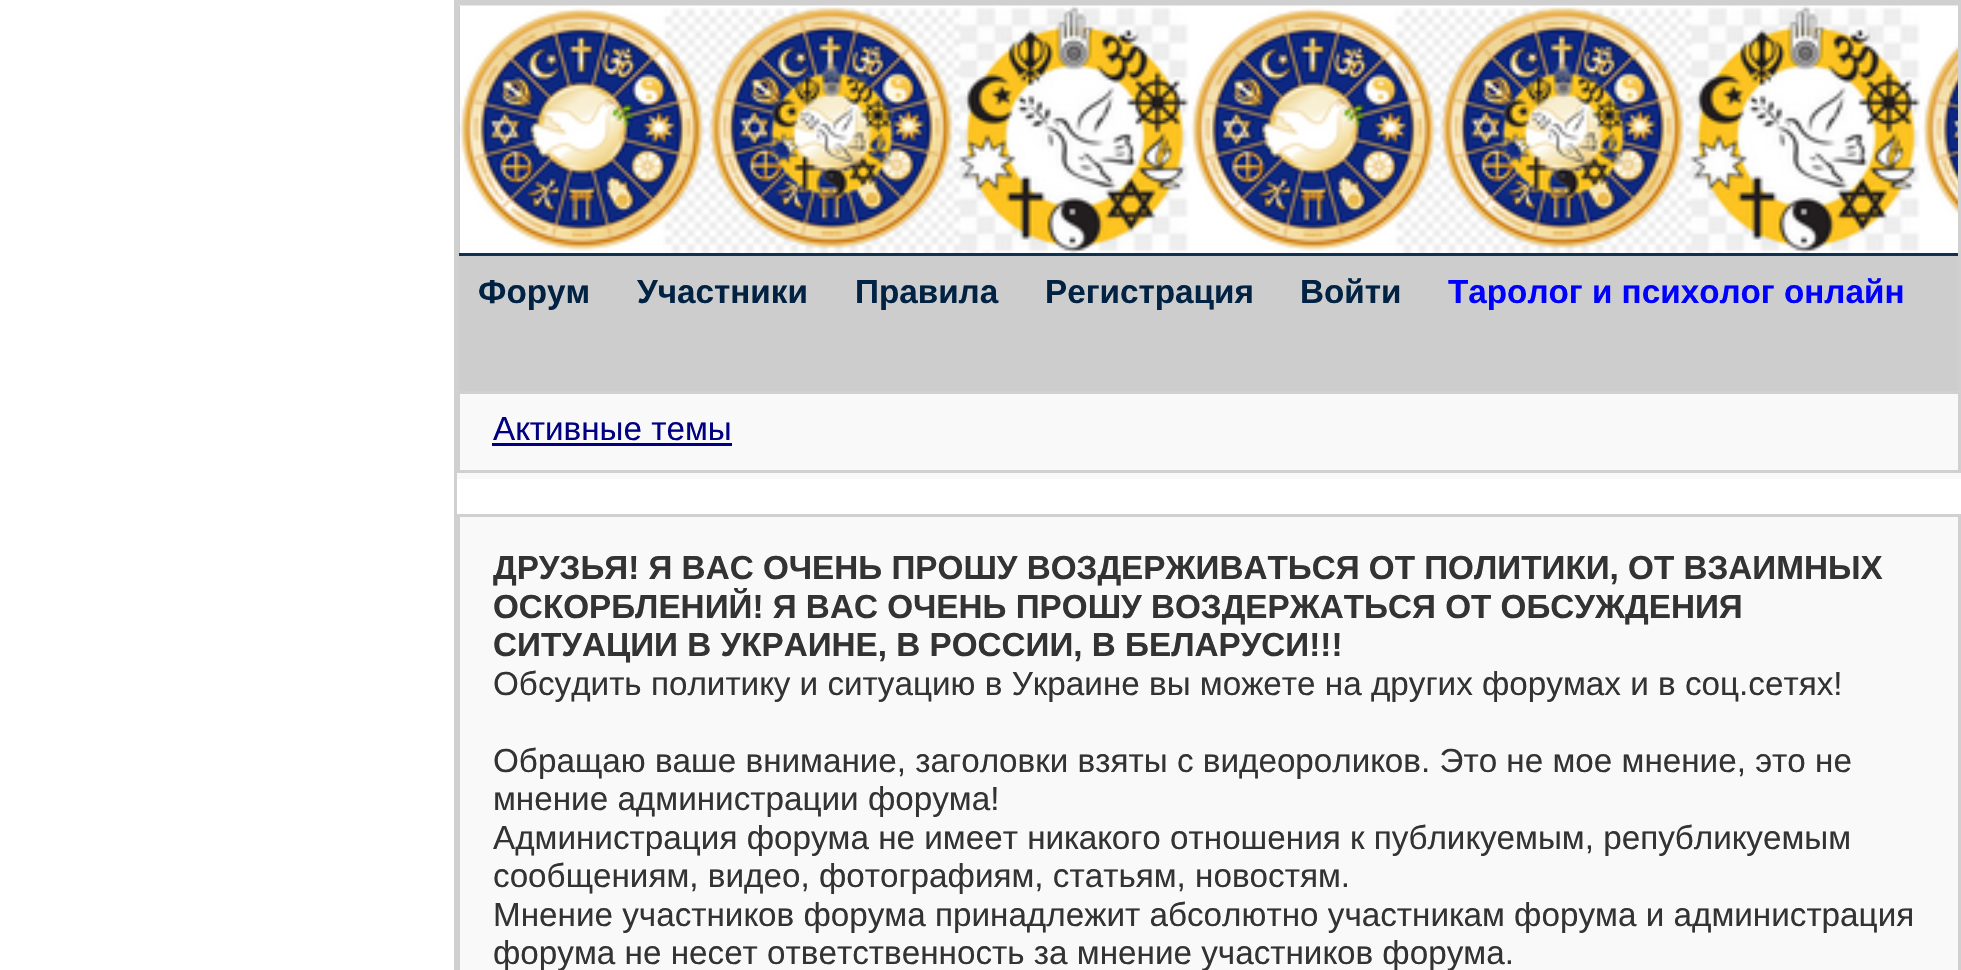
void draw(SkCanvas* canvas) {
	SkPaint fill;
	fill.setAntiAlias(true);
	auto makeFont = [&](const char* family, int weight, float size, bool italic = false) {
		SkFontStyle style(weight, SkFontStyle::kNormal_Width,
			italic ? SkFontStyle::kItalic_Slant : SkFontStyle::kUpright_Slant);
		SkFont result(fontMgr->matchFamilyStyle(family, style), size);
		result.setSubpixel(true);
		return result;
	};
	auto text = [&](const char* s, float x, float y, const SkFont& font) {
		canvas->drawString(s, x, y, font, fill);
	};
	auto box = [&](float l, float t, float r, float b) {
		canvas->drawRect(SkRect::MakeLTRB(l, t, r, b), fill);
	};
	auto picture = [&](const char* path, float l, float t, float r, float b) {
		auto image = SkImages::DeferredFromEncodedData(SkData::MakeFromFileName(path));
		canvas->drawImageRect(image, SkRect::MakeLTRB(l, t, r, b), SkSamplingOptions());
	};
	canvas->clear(0xFFFFFFFF);
	fill.setStyle(SkPaint::kStroke_Style);
	fill.setStrokeWidth(3);
	fill.setColor(0xFFD0D0D0);
	canvas->drawRect(SkRect::MakeLTRB(455.5f, 1.5f, 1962.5f, 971.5f), fill);
	fill.setStyle(SkPaint::kFill_Style);
	box(457, 3, 1961, 6);
	box(1958, 3, 1961, 391);
	box(457, 3, 460, 256);
	fill.setColor(0xFF113151);
	box(459, 6, 1958, 256);
	picture("image0.png", 459, 5, 1958, 253);
	fill.setColor(0xFFD0D0D0);
	box(457, 256, 459, 391);
	fill.setColor(0xFFCDCDCD);
	box(459, 256, 1958, 391);
	fill.setColor(0xFFF8F8F8);
	box(457, 473, 1961, 479);
	fill.setColor(0xFFF9F9F9);
	canvas->drawRect(SkRect::MakeLTRB(458.5f, 392.5f, 1959.5f, 471.5f), fill);
	fill.setStyle(SkPaint::kStroke_Style);
	fill.setColor(0xFFD0D0D0);
	canvas->drawRect(SkRect::MakeLTRB(458.5f, 392.5f, 1959.5f, 471.5f), fill);
	fill.setStyle(SkPaint::kFill_Style);
	fill.setColor(0xFF000080);
	box(492, 443, 732, 446);
	fill.setColor(0xFFF9F9F9);
	canvas->drawRect(SkRect::MakeLTRB(458.5f, 515.5f, 1959.5f, 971.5f), fill);
	fill.setStyle(SkPaint::kStroke_Style);
	fill.setColor(0xFFD0D0D0);
	canvas->drawRect(SkRect::MakeLTRB(458.5f, 515.5f, 1959.5f, 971.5f), fill);
	auto font1 = makeFont("Liberation Sans", 700, 33.25f);
	fill.setStyle(SkPaint::kFill_Style);
	fill.setColor(0xFF012243);
	text("Форум", 478, 303, font1);
	text("Участники", 637, 303, font1);
	text("Правила", 855, 303, font1);
	text("Регистрация", 1045, 303, font1);
	text("Войти", 1300, 303, font1);
	fill.setColor(0xFF0000FF);
	text("Таролог и психолог онлайн", 1448, 303, font1);
	auto font2 = makeFont("Liberation Sans", 400, 33.25f);
	fill.setColor(0xFF000080);
	text("Активные темы", 493, 440, font2);
	fill.setColor(0xFF333333);
	text("ДРУЗЬЯ! Я ВАС ОЧЕНЬ ПРОШУ ВОЗДЕРЖИВАТЬСЯ ОТ ПОЛИТИКИ, ОТ ВЗАИМНЫХ", 493, 579, font1);
	text("ОСКОРБЛЕНИЙ! Я ВАС ОЧЕНЬ ПРОШУ ВОЗДЕРЖАТЬСЯ ОТ ОБСУЖДЕНИЯ", 493, 618, font1);
	text("СИТУАЦИИ В УКРАИНЕ, В РОССИИ, В БЕЛАРУСИ!!!", 493, 656, font1);
	text("Обсудить политику и ситуацию в Украине вы можете на других форумах и в соц.сетях!", 493, 695, font2);
	text("Обращаю ваше внимание, заголовки взяты с видеороликов. Это не мое мнение, это не", 493, 772, font2);
	text("мнение администрации форума!", 493, 810, font2);
	text("Администрация форума не имеет никакого отношения к публикуемым, републикуемым", 493, 849, font2);
	text("сообщениям, видео, фотографиям, статьям, новостям.", 493, 887, font2);
	text("Мнение участников форума принадлежит абсолютно участникам форума и администрация", 493, 926, font2);
	text("форума не несет ответственность за мнение участников форума.", 493, 964, font2);
}
